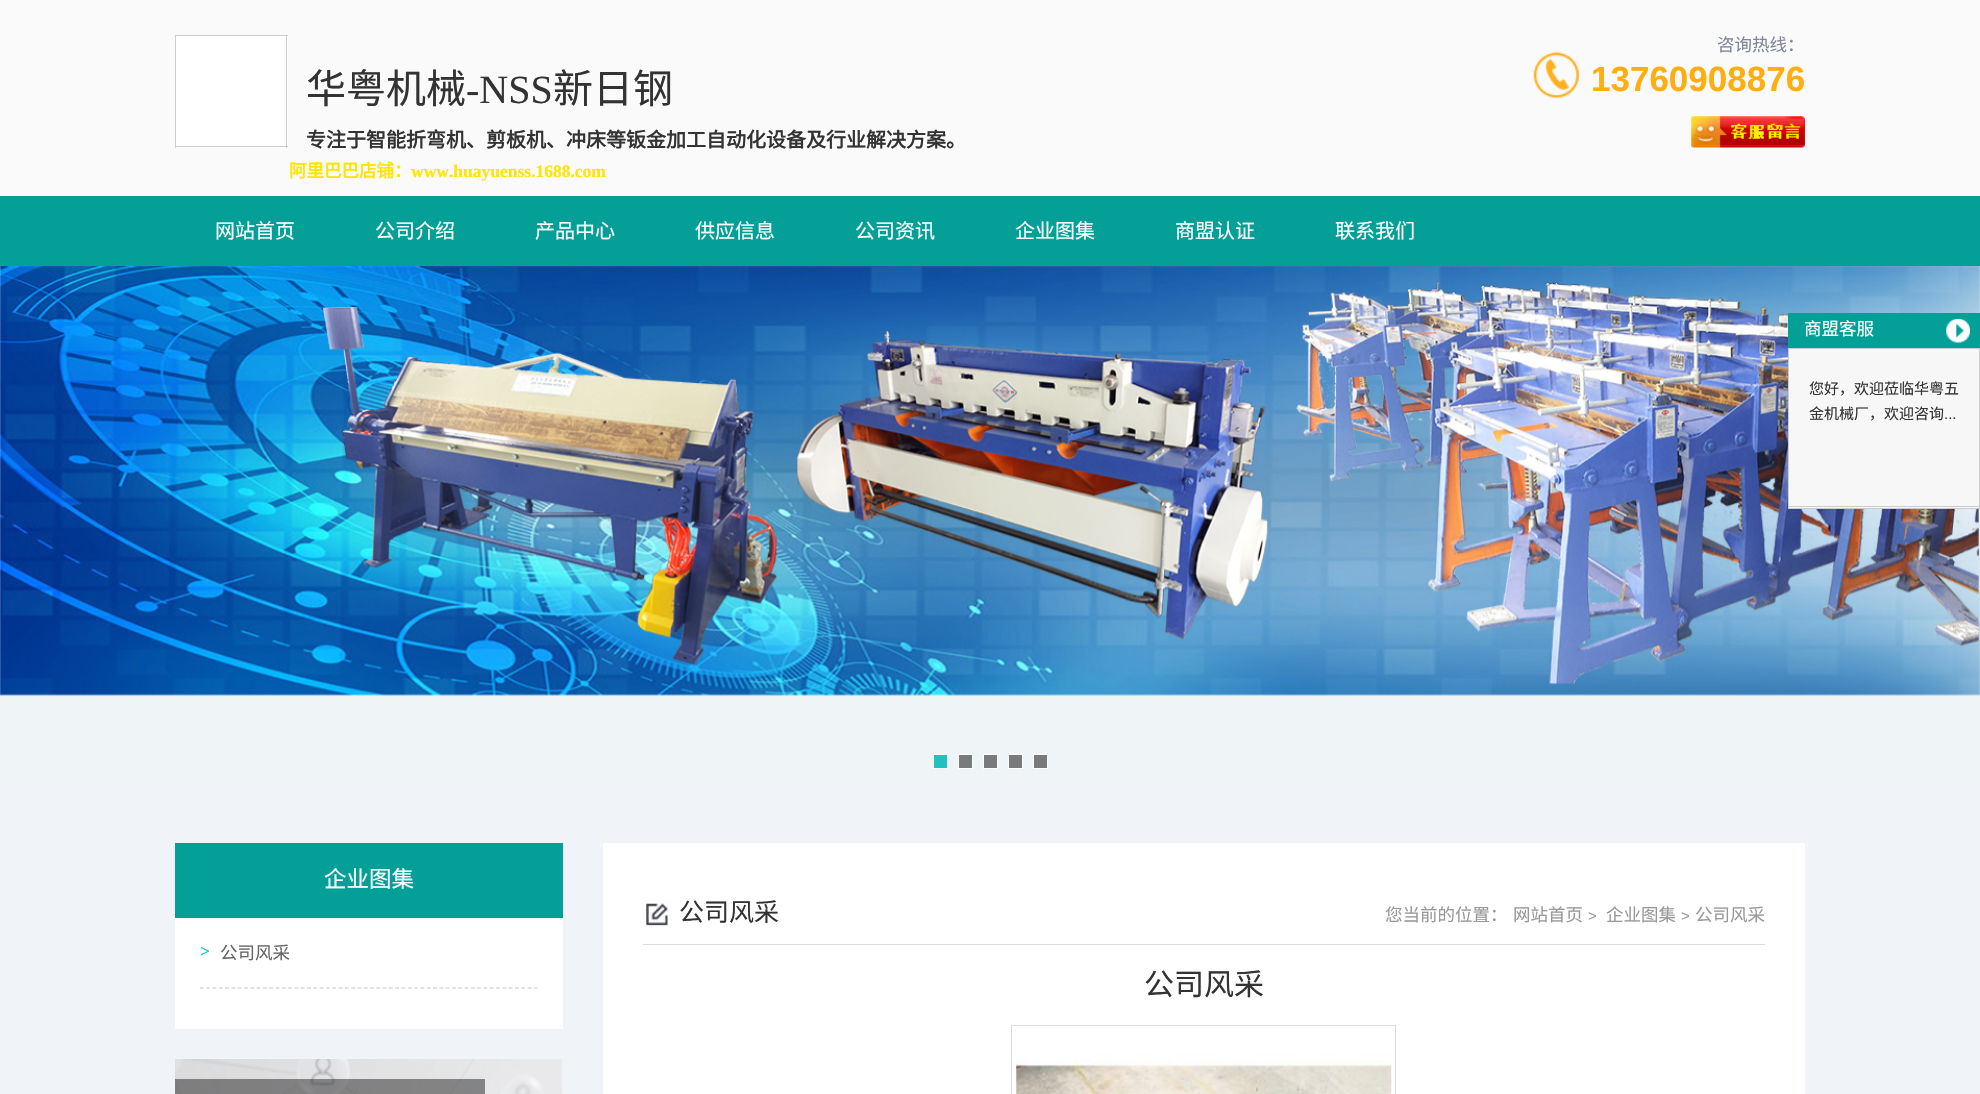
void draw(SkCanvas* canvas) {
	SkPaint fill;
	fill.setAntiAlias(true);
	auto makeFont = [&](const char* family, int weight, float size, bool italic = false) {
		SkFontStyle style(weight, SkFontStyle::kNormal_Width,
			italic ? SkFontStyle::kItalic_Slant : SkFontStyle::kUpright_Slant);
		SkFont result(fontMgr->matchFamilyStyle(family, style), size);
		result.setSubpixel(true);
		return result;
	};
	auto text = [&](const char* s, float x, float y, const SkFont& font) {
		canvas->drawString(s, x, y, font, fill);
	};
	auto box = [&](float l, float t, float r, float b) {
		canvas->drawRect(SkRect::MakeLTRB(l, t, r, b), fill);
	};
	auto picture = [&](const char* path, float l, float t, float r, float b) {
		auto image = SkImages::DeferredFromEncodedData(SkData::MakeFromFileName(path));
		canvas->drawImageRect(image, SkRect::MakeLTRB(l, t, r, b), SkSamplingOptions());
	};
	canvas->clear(0xFFFAFAFA);
	fill.setColor(0xFFFFFFFF);
	box(176, 36, 288, 148);
	fill.setColor(0xFFCCCCCC);
	box(175, 35, 288, 36);
	box(286, 35, 287, 148);
	box(175, 146, 288, 147);
	box(175, 35, 176, 148);
	picture("image0.png", 1533, 52, 1579, 98);
	picture("image1.png", 1691, 116, 1805, 148);
	fill.setColor(0xFF049F97);
	box(0, 196, 1980, 266);
	fill.setColor(0xFFEFF4F7);
	box(0, 694, 1980, 783);
	picture("image2.png", 0, 266, 1980, 696);
	fill.setColor(0xFF20C3BB);
	canvas->drawRect(SkRect::MakeLTRB(933.5f, 754.5f, 947.5f, 768.5f), fill);
	fill.setStyle(SkPaint::kStroke_Style);
	fill.setStrokeWidth(1);
	fill.setColor(0xFFFFFFFF);
	canvas->drawRect(SkRect::MakeLTRB(933.5f, 754.5f, 947.5f, 768.5f), fill);
	fill.setStyle(SkPaint::kFill_Style);
	fill.setColor(0xFF787A7C);
	canvas->drawRect(SkRect::MakeLTRB(958.5f, 754.5f, 972.5f, 768.5f), fill);
	fill.setStyle(SkPaint::kStroke_Style);
	fill.setColor(0xFFFFFFFF);
	canvas->drawRect(SkRect::MakeLTRB(958.5f, 754.5f, 972.5f, 768.5f), fill);
	fill.setStyle(SkPaint::kFill_Style);
	fill.setColor(0xFF787A7C);
	canvas->drawRect(SkRect::MakeLTRB(983.5f, 754.5f, 997.5f, 768.5f), fill);
	fill.setStyle(SkPaint::kStroke_Style);
	fill.setColor(0xFFFFFFFF);
	canvas->drawRect(SkRect::MakeLTRB(983.5f, 754.5f, 997.5f, 768.5f), fill);
	fill.setStyle(SkPaint::kFill_Style);
	fill.setColor(0xFF787A7C);
	canvas->drawRect(SkRect::MakeLTRB(1008.5f, 754.5f, 1022.5f, 768.5f), fill);
	fill.setStyle(SkPaint::kStroke_Style);
	fill.setColor(0xFFFFFFFF);
	canvas->drawRect(SkRect::MakeLTRB(1008.5f, 754.5f, 1022.5f, 768.5f), fill);
	fill.setStyle(SkPaint::kFill_Style);
	fill.setColor(0xFF787A7C);
	canvas->drawRect(SkRect::MakeLTRB(1033.5f, 754.5f, 1047.5f, 768.5f), fill);
	fill.setStyle(SkPaint::kStroke_Style);
	fill.setColor(0xFFFFFFFF);
	canvas->drawRect(SkRect::MakeLTRB(1033.5f, 754.5f, 1047.5f, 768.5f), fill);
	fill.setStyle(SkPaint::kFill_Style);
	fill.setColor(0xFF049F97);
	box(1788, 313, 1980, 348);
	picture("image3.png", 1946, 318, 1970, 343);
	fill.setColor(0xFFF7F7F7);
	canvas->drawRect(SkRect::MakeLTRB(1788.5f, 348.5f, 1979.5f, 508.5f), fill);
	fill.setStyle(SkPaint::kStroke_Style);
	fill.setColor(0xFFCCCCCC);
	canvas->drawRect(SkRect::MakeLTRB(1788.5f, 348.5f, 1979.5f, 508.5f), fill);
	fill.setStyle(SkPaint::kFill_Style);
	box(1789, 506, 1979, 507);
	fill.setColor(0xFFF0F3F8);
	box(0, 783, 1980, 1094);
	fill.setColor(0xFF049F97);
	box(175, 843, 563, 918);
	fill.setColor(0xFFFFFFFF);
	box(175, 918, 563, 1029);
	fill.setStyle(SkPaint::kStroke_Style);
	fill.setStrokeWidth(1.2f);
	fill.setColor(0xFFC5C5C5);
	fill.setPathEffect(SkDashPathEffect::Make({{3.75f, 2.55f}}, 0));
	canvas->drawPath(SkPathBuilder().moveTo(200, 988).lineTo(537.5f, 988).detach(), fill);
	fill.setPathEffect(nullptr);
	picture("image4.png", 175, 1059, 563, 1094);
	fill.setStyle(SkPaint::kFill_Style);
	fill.setColor(0x80212121);
	box(175, 1079, 485, 1094);
	fill.setColor(0xFFFFFFFF);
	box(603, 843, 1805, 1094);
	fill.setColor(0xFFDDDDDD);
	box(643, 944, 1765, 945);
	picture("image5.png", 643, 899, 673, 929);
	fill.setStyle(SkPaint::kStroke_Style);
	fill.setStrokeWidth(1);
	canvas->drawRect(SkRect::MakeLTRB(1011.5f, 1025.5f, 1395.5f, 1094.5f), fill);
	picture("image6.png", 1016, 1051, 1392, 1094);
	auto font1 = makeFont("Noto Sans CJK SC", 400, 40);
	fill.setStyle(SkPaint::kFill_Style);
	fill.setColor(0xFF333333);
	text("华粤机械", 306, 103, font1);
	auto font2 = makeFont("Liberation Serif", 400, 40);
	text("-NSS", 466, 103, font2);
	text("新日钢", 553, 103, font1);
	auto font3 = makeFont("Noto Sans CJK SC", 700, 20);
	text("专注于智能折弯机、剪板机、冲床等钣金加工自动化设备及行业解决方案。", 306, 147, font3);
	auto font4 = makeFont("Noto Sans CJK SC", 700, 17.5f);
	fill.setColor(0xFFFFE500);
	text("阿里巴巴店铺：", 289, 177, font4);
	auto font5 = makeFont("Liberation Serif", 700, 17.5f);
	text("www.huayuenss.1688.com", 411, 177, font5);
	auto font6 = makeFont("Noto Sans CJK SC", 400, 17.5f);
	fill.setColor(0xFF818798);
	text("咨询热线：", 1717, 51, font6);
	auto font7 = makeFont("Liberation Sans", 700, 35);
	fill.setColor(0xFFFFAD10);
	text("13760908876", 1591, 91, font7);
	auto font8 = makeFont("Noto Sans CJK SC", 400, 20);
	fill.setColor(0xFFFFFFFF);
	text("网站首页", 215, 238, font8);
	text("公司介绍", 375, 238, font8);
	text("产品中心", 535, 238, font8);
	text("供应信息", 695, 238, font8);
	text("公司资讯", 855, 238, font8);
	text("企业图集", 1015, 238, font8);
	text("商盟认证", 1175, 238, font8);
	text("联系我们", 1335, 238, font8);
	text("商盟客服", 1804, 335, font6);
	auto font9 = makeFont("Noto Sans CJK SC", 400, 15);
	fill.setColor(0xFF333333);
	text("您好，欢迎莅临华粤五", 1809, 394, font9);
	text("金机械厂，欢迎咨询", 1809, 419, font9);
	auto font10 = makeFont("Liberation Sans", 400, 15);
	text("...", 1944, 419, font10);
	auto font11 = makeFont("Noto Sans CJK SC", 400, 22.5f);
	fill.setColor(0xFFFFFFFF);
	text("企业图集", 324, 887, font11);
	fill.setColor(0xFF20C3BB);
	text(">", 200, 957, font5);
	fill.setColor(0xFF666666);
	text("公司风采", 220, 959, font6);
	auto font12 = makeFont("Noto Sans CJK SC", 400, 25);
	fill.setColor(0xFF333333);
	text("公司风采", 679, 921, font12);
	fill.setColor(0xFF999999);
	text("您当前的位置：", 1385, 921, font6);
	text("网站首页", 1513, 921, font6);
	text(">", 1588, 921, font10);
	text("企业图集", 1606, 921, font6);
	text(">", 1681, 921, font10);
	text("公司风采", 1695, 921, font6);
	auto font13 = makeFont("Noto Sans CJK SC", 400, 30);
	fill.setColor(0xFF333333);
	text("公司风采", 1144, 995, font13);
}
